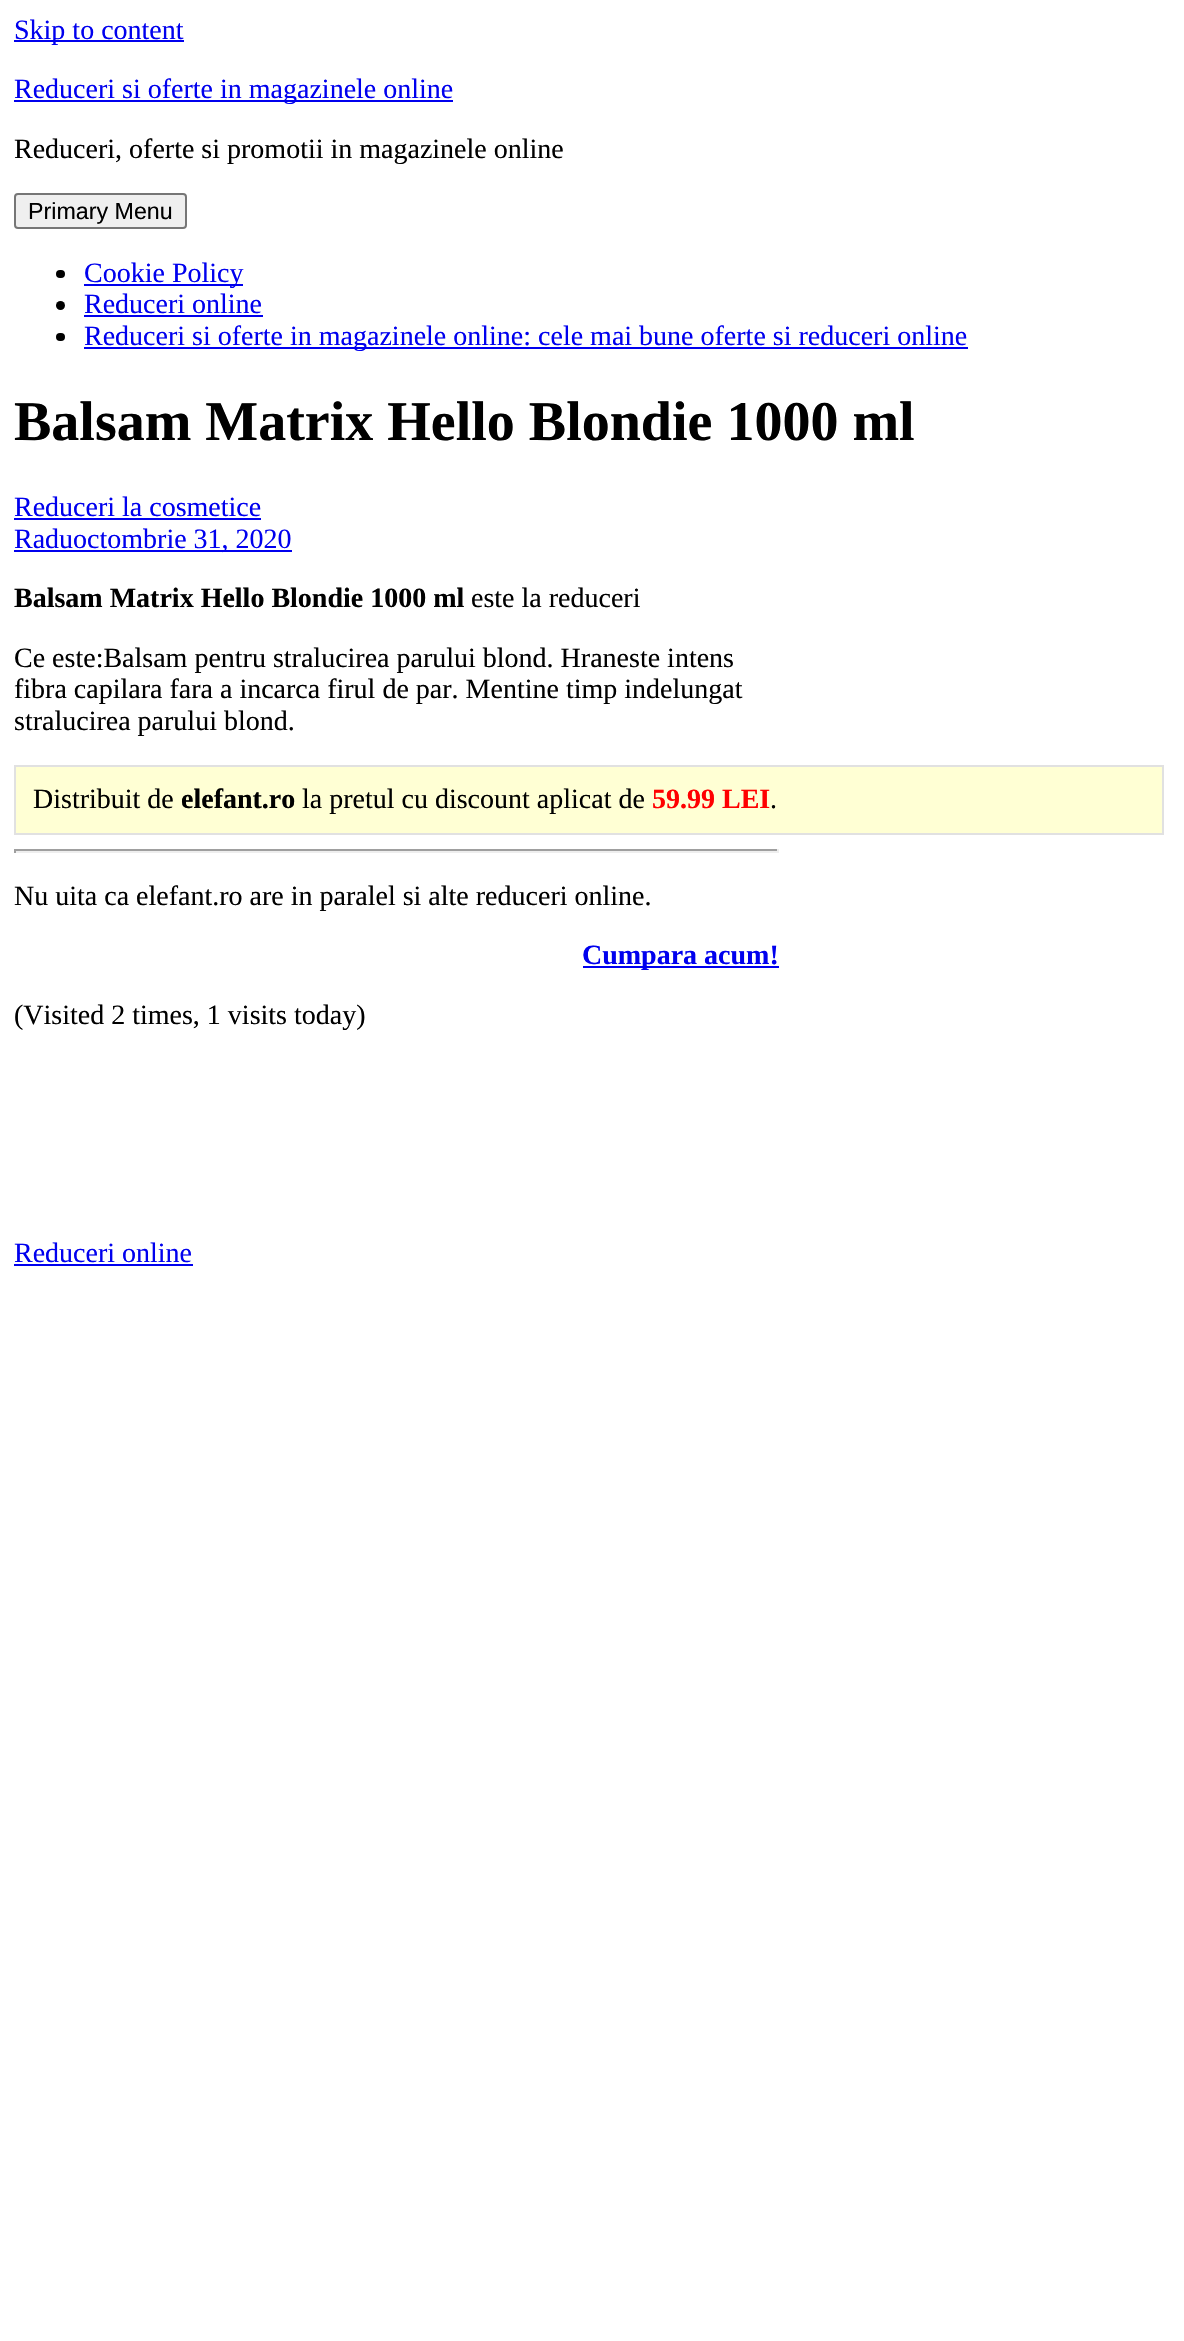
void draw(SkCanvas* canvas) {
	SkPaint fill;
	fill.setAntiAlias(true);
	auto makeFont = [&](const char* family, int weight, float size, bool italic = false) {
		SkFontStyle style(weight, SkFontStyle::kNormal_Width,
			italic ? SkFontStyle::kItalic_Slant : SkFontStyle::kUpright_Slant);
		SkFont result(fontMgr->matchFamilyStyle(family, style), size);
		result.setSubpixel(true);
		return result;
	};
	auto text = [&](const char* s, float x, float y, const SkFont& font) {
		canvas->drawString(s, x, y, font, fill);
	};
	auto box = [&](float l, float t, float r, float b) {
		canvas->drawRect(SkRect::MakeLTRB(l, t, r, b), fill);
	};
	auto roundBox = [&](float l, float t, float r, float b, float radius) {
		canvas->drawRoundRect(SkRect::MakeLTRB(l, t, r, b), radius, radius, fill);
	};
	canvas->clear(0xFFFFFFFF);
	fill.setColor(0xFF0000EE);
	box(14, 40, 184, 42);
	box(14, 100, 453, 102);
	fill.setColor(0xFFEFEFEF);
	canvas->drawRoundRect(SkRect::MakeLTRB(15, 194, 186, 228), 3, 3, fill);
	fill.setStyle(SkPaint::kStroke_Style);
	fill.setStrokeWidth(2);
	fill.setColor(0xFF767676);
	canvas->drawRoundRect(SkRect::MakeLTRB(15, 194, 186, 228), 3, 3, fill);
	fill.setStyle(SkPaint::kFill_Style);
	fill.setColor(0xFF000000);
	roundBox(56, 270, 65, 278, 4);
	fill.setColor(0xFF0000EE);
	box(84, 284, 243, 286);
	fill.setColor(0xFF000000);
	canvas->drawCircle(60.5f, 305.5f, 4.5f, fill);
	fill.setColor(0xFF0000EE);
	box(84, 315, 263, 317);
	fill.setColor(0xFF000000);
	roundBox(56, 333, 65, 341, 4);
	fill.setColor(0xFF0000EE);
	box(84, 347, 968, 349);
	box(14, 518, 261, 520);
	box(14, 550, 292, 552);
	fill.setColor(0xFFFFFFD4);
	canvas->drawRect(SkRect::MakeLTRB(15, 766, 1163, 834), fill);
	fill.setStyle(SkPaint::kStroke_Style);
	fill.setColor(0xFFE1E1E1);
	canvas->drawRect(SkRect::MakeLTRB(15, 766, 1163, 834), fill);
	fill.setStyle(SkPaint::kFill_Style);
	fill.setColor(0xFF9F9F9F);
	box(14, 849, 779, 851);
	fill.setColor(0xFFEEEEEE);
	box(777, 849, 779, 853);
	box(14, 851, 779, 853);
	fill.setColor(0xFF9F9F9F);
	box(14, 849, 16, 853);
	fill.setColor(0xFF0000EE);
	box(583, 966, 779, 968);
	box(14, 1264, 193, 1266);
	auto font1 = makeFont("Liberation Serif", 400, 28);
	text("Skip to content", 14, 39, font1);
	text("Reduceri si oferte in magazinele online", 14, 98, font1);
	fill.setColor(0xFF000000);
	text("Reduceri, oferte si promotii in magazinele online", 14, 158, font1);
	auto font2 = makeFont("Liberation Sans", 400, 23.25f);
	text("Primary Menu", 28, 219, font2);
	fill.setColor(0xFF0000EE);
	text("Cookie Policy", 84, 282, font1);
	text("Reduceri online", 84, 313, font1);
	text("Reduceri si oferte in magazinele online: cele mai bune oferte si reduceri online", 84, 345, font1);
	auto font3 = makeFont("Liberation Serif", 700, 56);
	fill.setColor(0xFF000000);
	text("Balsam Matrix Hello Blondie 1000 ml", 14, 440, font3);
	fill.setColor(0xFF0000EE);
	text("Reduceri la cosmetice", 14, 516, font1);
	text("Raduoctombrie 31, 2020", 14, 548, font1);
	auto font4 = makeFont("Liberation Serif", 700, 28);
	fill.setColor(0xFF000000);
	text("Balsam Matrix Hello Blondie 1000 ml", 14, 607, font4);
	text("este la reduceri", 471, 607, font1);
	text("Ce este:Balsam pentru stralucirea parului blond. Hraneste intens", 14, 667, font1);
	text("fibra capilara fara a incarca firul de par. Mentine timp indelungat", 14, 698, font1);
	text("stralucirea parului blond.", 14, 730, font1);
	text("Distribuit de", 33, 808, font1);
	text("elefant.ro", 181, 808, font4);
	text("la pretul cu discount aplicat de", 302, 808, font1);
	fill.setColor(0xFFFF0000);
	text("59.99 LEI", 652, 808, font4);
	fill.setColor(0xFF000000);
	text(".", 770, 808, font1);
	text("Nu uita ca elefant.ro are in paralel si alte reduceri online.", 14, 905, font1);
	fill.setColor(0xFF0000EE);
	text("Cumpara acum!", 582, 964, font4);
	fill.setColor(0xFF000000);
	text("(Visited 2 times, 1 visits today)", 14, 1024, font1);
	fill.setColor(0xFF0000EE);
	text("Reduceri online", 14, 1262, font1);
}
